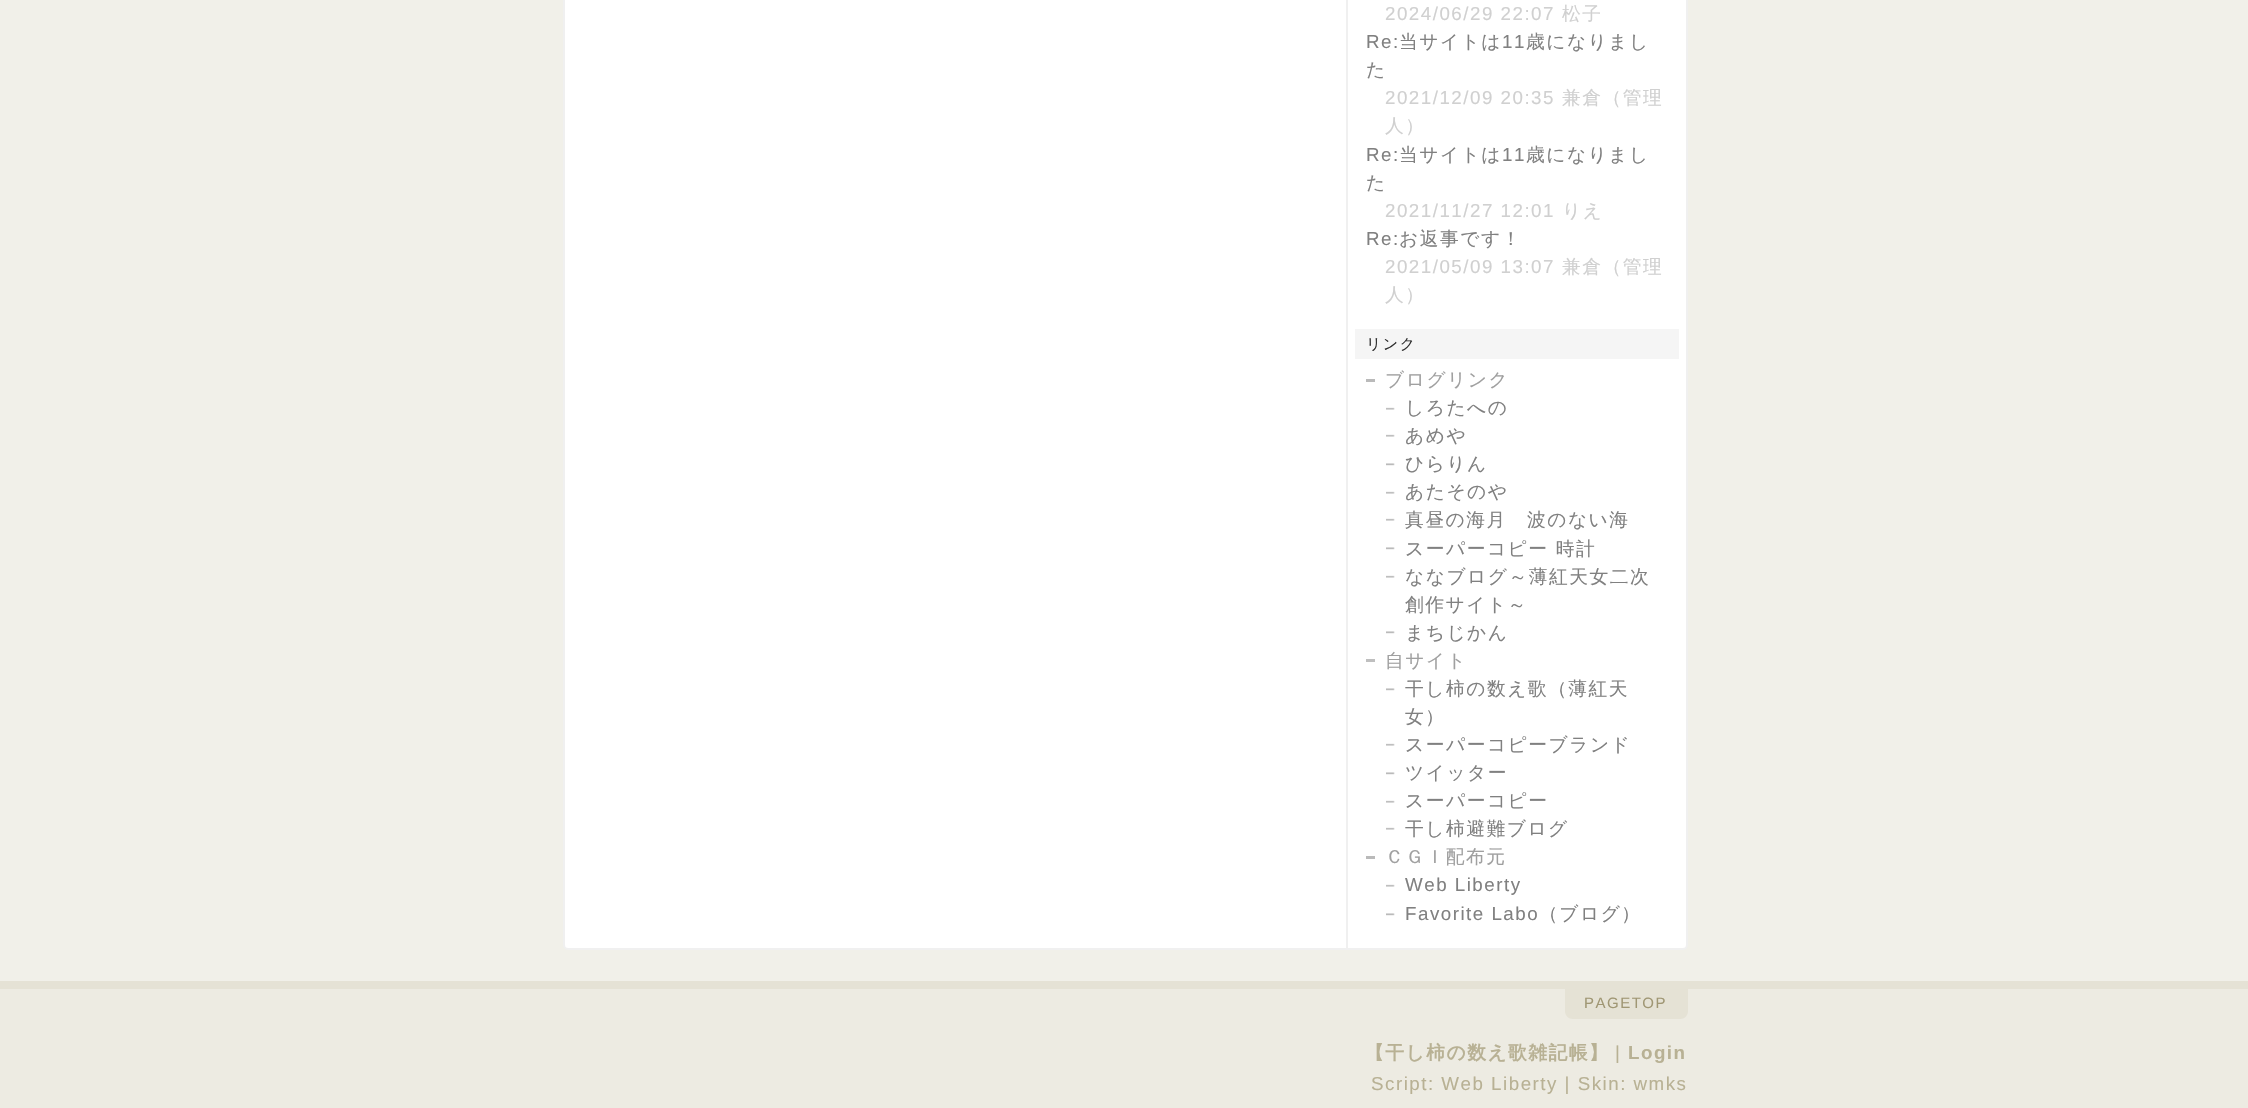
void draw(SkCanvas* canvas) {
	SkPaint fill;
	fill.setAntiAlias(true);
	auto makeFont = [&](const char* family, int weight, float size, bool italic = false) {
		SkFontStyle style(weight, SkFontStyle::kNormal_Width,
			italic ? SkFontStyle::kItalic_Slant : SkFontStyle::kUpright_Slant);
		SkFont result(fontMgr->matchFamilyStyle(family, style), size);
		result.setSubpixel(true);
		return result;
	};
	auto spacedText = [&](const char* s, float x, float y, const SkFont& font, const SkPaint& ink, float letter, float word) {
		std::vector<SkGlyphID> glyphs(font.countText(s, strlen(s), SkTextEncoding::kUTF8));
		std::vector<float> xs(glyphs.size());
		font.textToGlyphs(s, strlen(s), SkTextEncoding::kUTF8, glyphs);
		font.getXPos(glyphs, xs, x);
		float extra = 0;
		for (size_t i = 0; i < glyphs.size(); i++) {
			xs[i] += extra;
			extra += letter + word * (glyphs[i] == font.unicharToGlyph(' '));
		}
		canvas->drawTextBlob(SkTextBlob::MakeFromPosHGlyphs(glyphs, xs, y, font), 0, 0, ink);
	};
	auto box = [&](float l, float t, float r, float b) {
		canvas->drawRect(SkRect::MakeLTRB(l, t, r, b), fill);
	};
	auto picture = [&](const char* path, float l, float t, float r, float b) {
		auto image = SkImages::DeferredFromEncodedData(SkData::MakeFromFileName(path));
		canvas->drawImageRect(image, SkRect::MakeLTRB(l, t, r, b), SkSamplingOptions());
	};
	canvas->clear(0xFFF1F0E9);
	fill.setColor(0xFFFFFFFF);
	canvas->drawRoundRect(SkRect::MakeLTRB(564, -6, 1687, 949), 4, 4, fill);
	fill.setStyle(SkPaint::kStroke_Style);
	fill.setStrokeWidth(2);
	fill.setColor(0xFFF0F0F0);
	canvas->drawRoundRect(SkRect::MakeLTRB(564, -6, 1687, 949), 4, 4, fill);
	fill.setStyle(SkPaint::kFill_Style);
	box(1346, 0, 1348, 948);
	fill.setColor(0xFFF5F5F5);
	box(1355, 329, 1679, 359);
	fill.setColor(0xFFBABABA);
	box(1366, 379, 1375, 382);
	picture("image0.png", 1386, 407, 1395, 410);
	picture("image0.png", 1386, 434, 1395, 437);
	picture("image1.png", 1386, 463, 1395, 466);
	picture("image0.png", 1386, 491, 1395, 494);
	picture("image0.png", 1386, 518, 1395, 521);
	picture("image1.png", 1386, 547, 1395, 550);
	picture("image0.png", 1386, 575, 1395, 578);
	picture("image1.png", 1386, 631, 1395, 634);
	fill.setColor(0xFFBFBFBF);
	box(1366, 659, 1375, 662);
	picture("image1.png", 1386, 688, 1395, 691);
	picture("image0.png", 1386, 743, 1395, 746);
	picture("image1.png", 1386, 772, 1395, 775);
	picture("image0.png", 1386, 800, 1395, 803);
	picture("image0.png", 1386, 827, 1395, 830);
	fill.setColor(0xFFBABABA);
	box(1366, 856, 1375, 859);
	picture("image0.png", 1386, 884, 1395, 887);
	picture("image1.png", 1386, 913, 1395, 916);
	fill.setColor(0xFFEDEBE2);
	box(0, 989, 2248, 1108);
	fill.setColor(0xFFE5E2D5);
	box(0, 981, 2248, 989);
	canvas->drawPath(SkPathBuilder().moveTo(1565, 989).lineTo(1688, 989).lineTo(1688, 1011).cubicTo(1688, 1015.5f, 1684.5f, 1019, 1680, 1019).lineTo(1573, 1019).cubicTo(1568.5f, 1019, 1565, 1015.5f, 1565, 1011).close().detach(), fill);
	auto font1 = makeFont("Liberation Sans", 400, 18.75f);
	fill.setColor(0xFFD0D0D0);
	spacedText("2024/06/29 22:07", 1385, 20, font1, fill, 1.5f, 0);
	auto font2 = makeFont("WenQuanYi Zen Hei", 500, 18.75f);
	spacedText("松子", 1562, 20, font2, fill, 1.5f, 0);
	fill.setColor(0xFF808080);
	spacedText("Re:", 1366, 48, font1, fill, 1.5f, 0);
	spacedText("当サイトは", 1399, 48, font2, fill, 1.5f, 0);
	spacedText("11", 1502, 48, font1, fill, 1.5f, 0);
	spacedText("歳になりまし", 1526, 48, font2, fill, 1.5f, 0);
	spacedText("た", 1366, 76, font2, fill, 1.5f, 0);
	fill.setColor(0xFFD0D0D0);
	spacedText("2021/12/09 20:35", 1385, 104, font1, fill, 1.5f, 0);
	spacedText("兼倉（管理", 1562, 104, font2, fill, 1.5f, 0);
	spacedText("人）", 1385, 132, font2, fill, 1.5f, 0);
	fill.setColor(0xFF808080);
	spacedText("Re:", 1366, 161, font1, fill, 1.5f, 0);
	spacedText("当サイトは", 1399, 161, font2, fill, 1.5f, 0);
	spacedText("11", 1502, 161, font1, fill, 1.5f, 0);
	spacedText("歳になりまし", 1526, 161, font2, fill, 1.5f, 0);
	spacedText("た", 1366, 189, font2, fill, 1.5f, 0);
	fill.setColor(0xFFD0D0D0);
	spacedText("2021/11/27 12:01", 1385, 217, font1, fill, 1.5f, 0);
	spacedText("りえ", 1562, 217, font2, fill, 1.5f, 0);
	fill.setColor(0xFF808080);
	spacedText("Re:", 1366, 245, font1, fill, 1.5f, 0);
	spacedText("お返事です！", 1399, 245, font2, fill, 1.5f, 0);
	fill.setColor(0xFFD0D0D0);
	spacedText("2021/05/09 13:07", 1385, 273, font1, fill, 1.5f, 0);
	spacedText("兼倉（管理", 1562, 273, font2, fill, 1.5f, 0);
	spacedText("人）", 1385, 301, font2, fill, 1.5f, 0);
	auto font3 = makeFont("WenQuanYi Zen Hei", 500, 15);
	fill.setColor(0xFF303030);
	spacedText("リンク", 1366, 349, font3, fill, 1.5f, 0);
	fill.setColor(0xFFA0A0A0);
	spacedText("ブログリンク", 1385, 386, font2, fill, 1.5f, 0);
	fill.setColor(0xFF808080);
	spacedText("しろたへの", 1405, 414, font2, fill, 1.5f, 0);
	spacedText("あめや", 1405, 442, font2, fill, 1.5f, 0);
	spacedText("ひらりん", 1405, 470, font2, fill, 1.5f, 0);
	spacedText("あたそのや", 1405, 498, font2, fill, 1.5f, 0);
	spacedText("真昼の海月　波のない海", 1405, 526, font2, fill, 1.5f, 0);
	spacedText("スーパーコピー 時計", 1405, 555, font2, fill, 1.5f, 0);
	spacedText("ななブログ～薄紅天女二次", 1405, 583, font2, fill, 1.5f, 0);
	spacedText("創作サイト～", 1405, 611, font2, fill, 1.5f, 0);
	spacedText("まちじかん", 1405, 639, font2, fill, 1.5f, 0);
	fill.setColor(0xFFA0A0A0);
	spacedText("自サイト", 1385, 667, font2, fill, 1.5f, 0);
	fill.setColor(0xFF808080);
	spacedText("干し柿の数え歌（薄紅天", 1405, 695, font2, fill, 1.5f, 0);
	spacedText("女）", 1405, 723, font2, fill, 1.5f, 0);
	spacedText("スーパーコピーブランド", 1405, 751, font2, fill, 1.5f, 0);
	spacedText("ツイッター", 1405, 779, font2, fill, 1.5f, 0);
	spacedText("スーパーコピー", 1405, 807, font2, fill, 1.5f, 0);
	spacedText("干し柿避難ブログ", 1405, 835, font2, fill, 1.5f, 0);
	fill.setColor(0xFFA0A0A0);
	spacedText("ＣＧＩ配布元", 1385, 863, font2, fill, 1.5f, 0);
	fill.setColor(0xFF808080);
	spacedText("Web Liberty", 1405, 891, font1, fill, 1.5f, 0);
	spacedText("Favorite Labo", 1405, 920, font1, fill, 1.5f, 0);
	spacedText("（ブログ）", 1539, 920, font2, fill, 1.5f, 0);
	auto font4 = makeFont("Liberation Sans", 400, 15);
	fill.setColor(0xFFA09774);
	spacedText("PAGETOP", 1584, 1008, font4, fill, 1.5f, 0);
	auto font5 = makeFont("WenQuanYi Zen Hei", 700, 18.75f);
	fill.setColor(0xFFB8B194);
	spacedText("【干し柿の数え歌雑記帳】", 1365, 1059, font5, fill, 1.5f, 0);
	spacedText("|", 1615, 1059, font1, fill, 1.5f, 0);
	auto font6 = makeFont("Liberation Sans", 700, 18.75f);
	spacedText("Login", 1628, 1059, font6, fill, 1.5f, 0);
	spacedText("Script: Web Liberty | Skin: wmks", 1371, 1090, font1, fill, 1.5f, 0);
}
